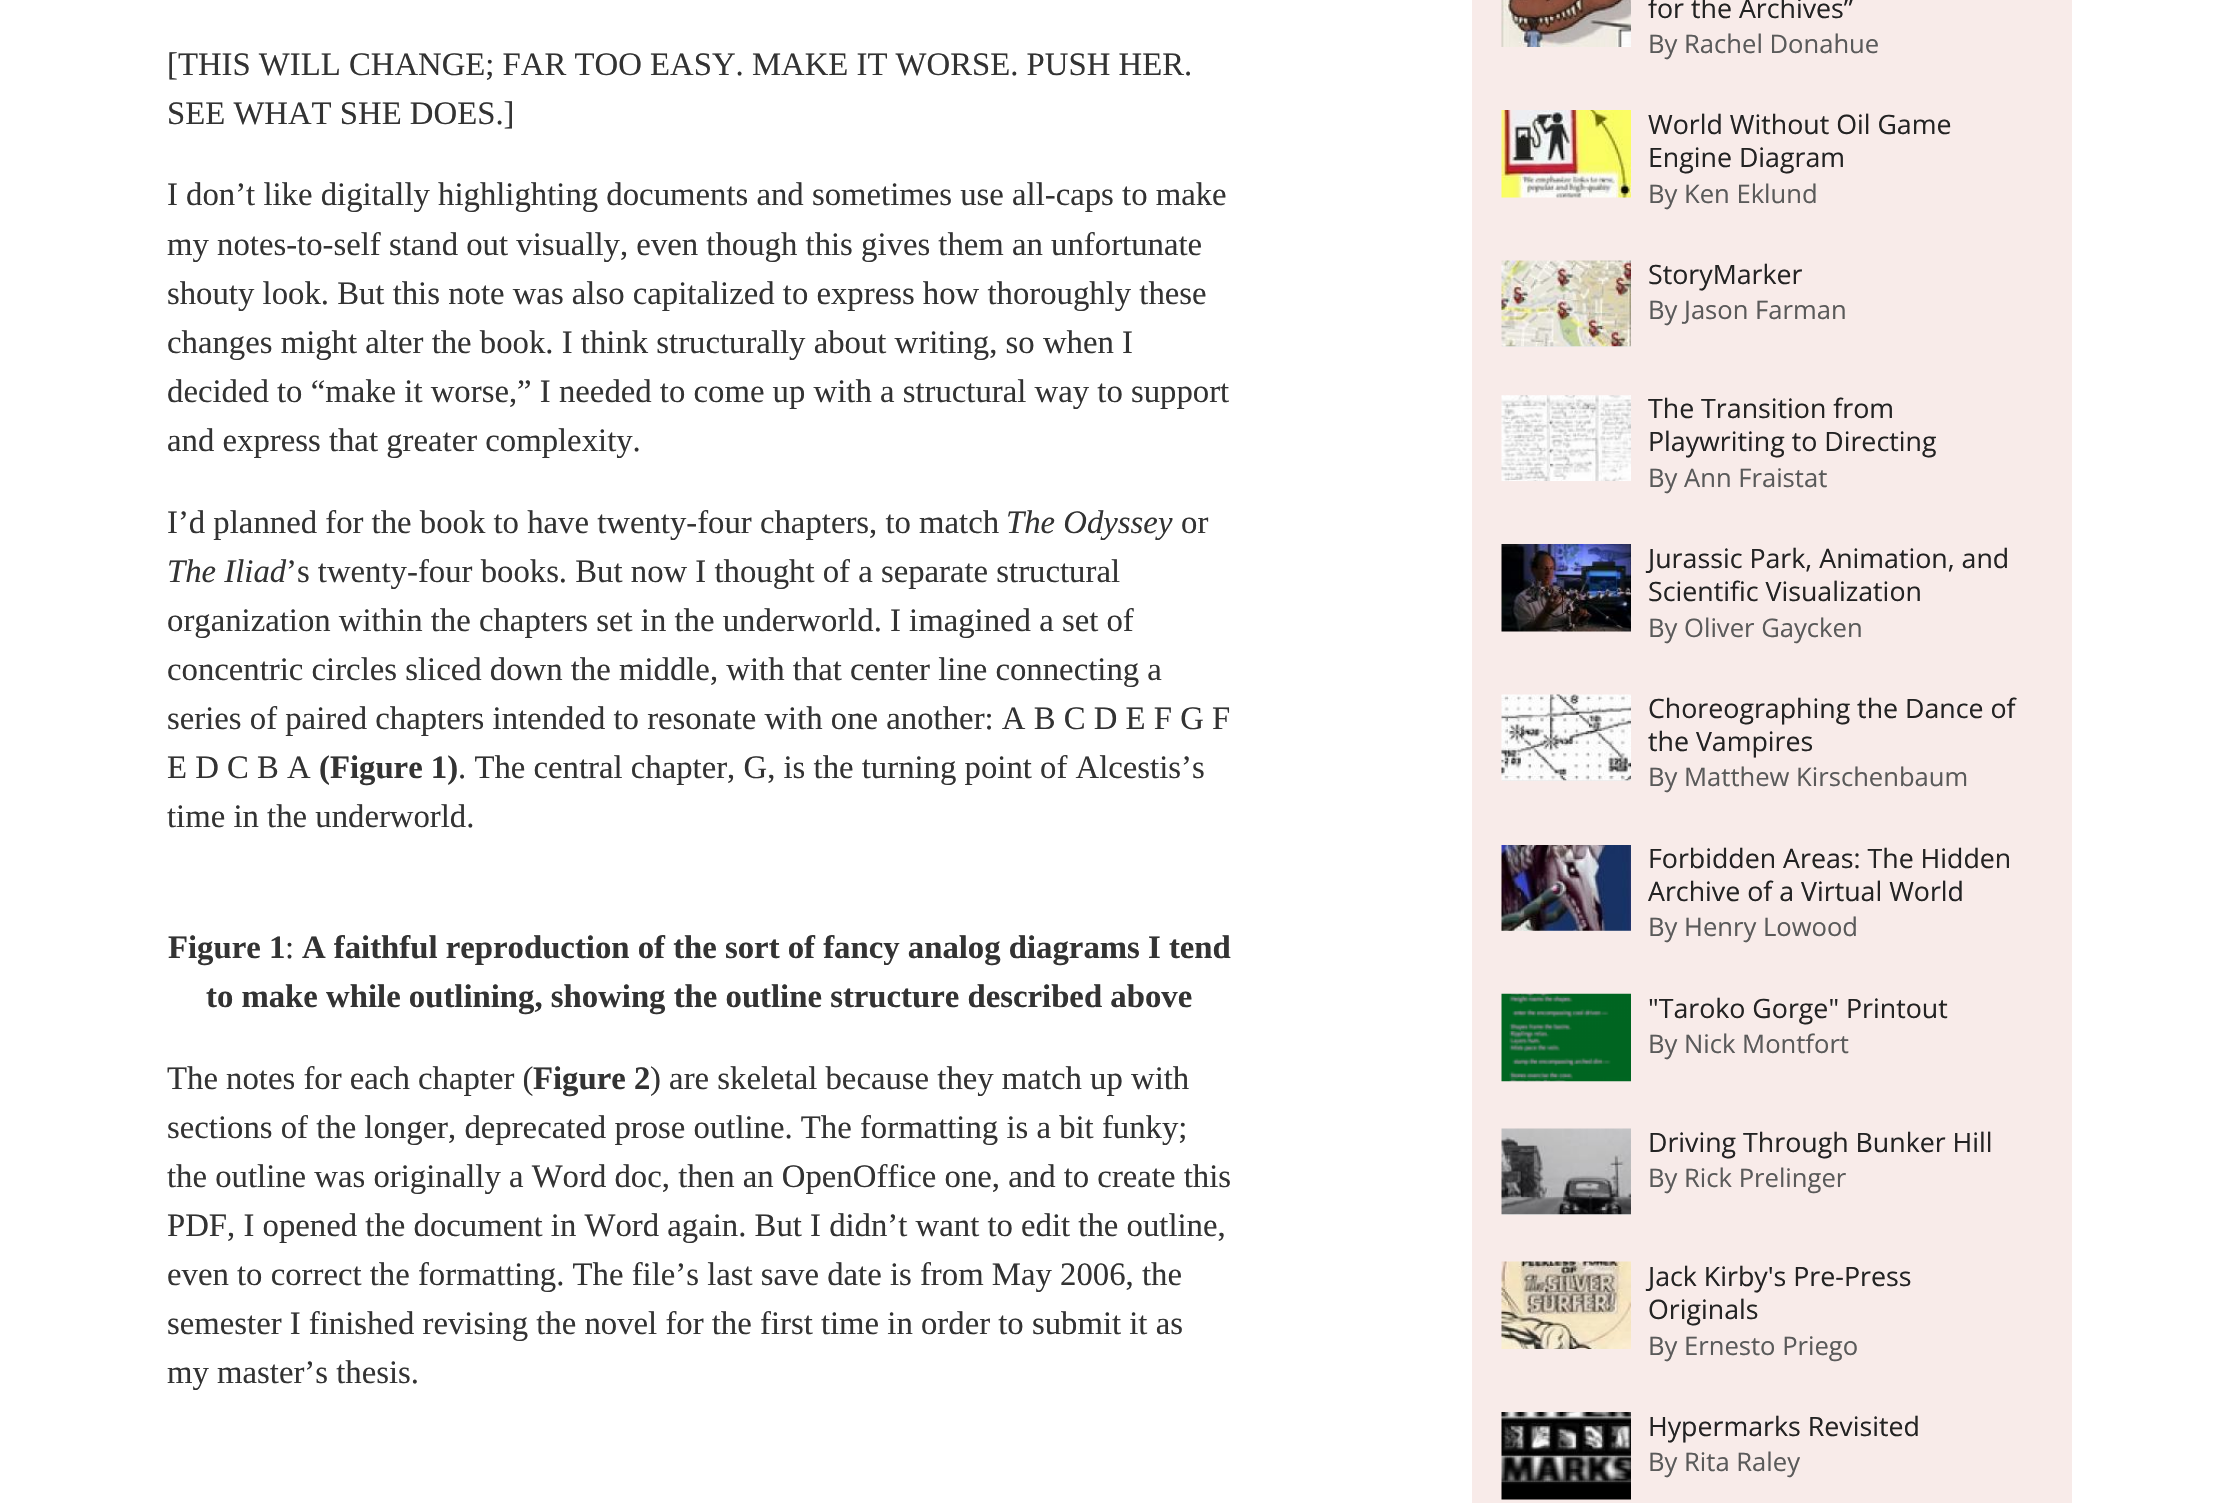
void draw(SkCanvas* canvas) {
	SkPaint fill;
	fill.setAntiAlias(true);
	auto makeFont = [&](const char* family, int weight, float size, bool italic = false) {
		SkFontStyle style(weight, SkFontStyle::kNormal_Width,
			italic ? SkFontStyle::kItalic_Slant : SkFontStyle::kUpright_Slant);
		SkFont result(fontMgr->matchFamilyStyle(family, style), size);
		result.setSubpixel(true);
		return result;
	};
	auto text = [&](const char* s, float x, float y, const SkFont& font) {
		canvas->drawString(s, x, y, font, fill);
	};
	auto box = [&](float l, float t, float r, float b) {
		canvas->drawRect(SkRect::MakeLTRB(l, t, r, b), fill);
	};
	auto picture = [&](const char* path, float l, float t, float r, float b) {
		auto image = SkImages::DeferredFromEncodedData(SkData::MakeFromFileName(path));
		canvas->drawImageRect(image, SkRect::MakeLTRB(l, t, r, b), SkSamplingOptions());
	};
	canvas->clear(0xFFFFFFFF);
	fill.setColor(0xFFF8EBE9);
	box(1472, 0, 2072, 1503);
	picture("image0.png", 1501, 0, 1631, 47);
	picture("image1.png", 1501, 110, 1631, 198);
	picture("image2.png", 1502, 346, 1631, 347);
	picture("image3.png", 1501, 260, 1631, 347);
	picture("image4.png", 1501, 395, 1631, 481);
	picture("image5.png", 1501, 544, 1631, 632);
	picture("image2.png", 1502, 780, 1631, 781);
	picture("image6.png", 1501, 694, 1631, 781);
	picture("image2.png", 1502, 930, 1631, 931);
	picture("image7.png", 1501, 845, 1631, 931);
	picture("image8.png", 1501, 993, 1631, 1082);
	picture("image2.png", 1502, 1214, 1631, 1215);
	picture("image9.png", 1501, 1128, 1631, 1215);
	picture("image10.png", 1501, 1261, 1631, 1349);
	picture("image11.png", 1501, 1412, 1631, 1500);
	auto font1 = makeFont("Liberation Serif", 400, 32.75f);
	fill.setColor(0xFF333333);
	text("[THIS WILL CHANGE; FAR TOO EASY. MAKE IT WORSE. PUSH HER.", 167, 75, font1);
	text("SEE WHAT SHE DOES.]", 167, 124, font1);
	text("I don’t like digitally highlighting documents and sometimes use all-caps to make", 167, 205, font1);
	text("my notes-to-self stand out visually, even though this gives them an unfortunate", 167, 255, font1);
	text("shouty look. But this note was also capitalized to express how thoroughly these", 167, 304, font1);
	text("changes might alter the book. I think structurally about writing, so when I", 167, 353, font1);
	text("decided to “make it worse,” I needed to come up with a structural way to support", 167, 402, font1);
	text("and express that greater complexity.", 167, 451, font1);
	text("I’d planned for the book to have twenty-four chapters, to match", 167, 533, font1);
	auto font2 = makeFont("Liberation Serif", 400, 32.75f, true);
	text("The Odyssey", 1006, 533, font2);
	text("or", 1181, 533, font1);
	text("The Iliad", 167, 582, font2);
	text("’s twenty-four books. But now I thought of a separate structural", 286, 582, font1);
	text("organization within the chapters set in the underworld. I imagined a set of", 167, 631, font1);
	text("concentric circles sliced down the middle, with that center line connecting a", 167, 680, font1);
	text("series of paired chapters intended to resonate with one another: A B C D E F G F", 167, 729, font1);
	text("E D C B A", 167, 778, font1);
	auto font3 = makeFont("Liberation Serif", 700, 32.75f);
	text("(Figure 1)", 319, 778, font3);
	text(". The central chapter, G, is the turning point of Alcestis’s", 458, 778, font1);
	text("time in the underworld.", 167, 827, font1);
	text("Figure 1", 168, 958, font3);
	text(":", 285, 958, font1);
	text("A faithful reproduction of the sort of fancy analog diagrams I tend", 302, 958, font3);
	text("to make while outlining, showing the outline structure described above", 206, 1007, font3);
	text("The notes for each chapter (", 167, 1089, font1);
	text("Figure 2", 533, 1089, font3);
	text(") are skeletal because they match up with", 650, 1089, font1);
	text("sections of the longer, deprecated prose outline. The formatting is a bit funky;", 167, 1138, font1);
	text("the outline was originally a Word doc, then an OpenOffice one, and to create this", 167, 1187, font1);
	text("PDF, I opened the document in Word again. But I didn’t want to edit the outline,", 167, 1236, font1);
	text("even to correct the formatting. The file’s last save date is from May 2006, the", 167, 1285, font1);
	text("semester I finished revising the novel for the first time in order to submit it as", 167, 1334, font1);
	text("my master’s thesis.", 167, 1383, font1);
	auto font4 = makeFont("Open Sans", 400, 26.75f);
	fill.setColor(0xFF232323);
	text("for the Archives”", 1648, 18, font4);
	auto font5 = makeFont("Open Sans", 400, 25.6f);
	fill.setColor(0xFF5A5A5A);
	text("By Rachel Donahue", 1648, 53, font5);
	fill.setColor(0xFF232323);
	text("World Without Oil Game", 1648, 134, font4);
	text("Engine Diagram", 1648, 167, font4);
	fill.setColor(0xFF5A5A5A);
	text("By Ken Eklund", 1648, 203, font5);
	fill.setColor(0xFF232323);
	text("StoryMarker", 1648, 284, font4);
	fill.setColor(0xFF5A5A5A);
	text("By Jason Farman", 1648, 319, font5);
	fill.setColor(0xFF232323);
	text("The Transition from", 1648, 418, font4);
	text("Playwriting to Directing", 1648, 451, font4);
	fill.setColor(0xFF5A5A5A);
	text("By Ann Fraistat", 1648, 487, font5);
	fill.setColor(0xFF232323);
	text("Jurassic Park, Animation, and", 1648, 568, font4);
	text("Scientific Visualization", 1648, 601, font4);
	fill.setColor(0xFF5A5A5A);
	text("By Oliver Gaycken", 1648, 637, font5);
	fill.setColor(0xFF232323);
	text("Choreographing the Dance of", 1648, 718, font4);
	text("the Vampires", 1648, 751, font4);
	fill.setColor(0xFF5A5A5A);
	text("By Matthew Kirschenbaum", 1648, 786, font5);
	fill.setColor(0xFF232323);
	text("Forbidden Areas: The Hidden", 1648, 868, font4);
	text("Archive of a Virtual World", 1648, 901, font4);
	fill.setColor(0xFF5A5A5A);
	text("By Henry Lowood", 1648, 936, font5);
	fill.setColor(0xFF232323);
	text("\"Taroko Gorge\" Printout", 1648, 1018, font4);
	fill.setColor(0xFF5A5A5A);
	text("By Nick Montfort", 1648, 1053, font5);
	fill.setColor(0xFF232323);
	text("Driving Through Bunker Hill", 1648, 1152, font4);
	fill.setColor(0xFF5A5A5A);
	text("By Rick Prelinger", 1648, 1187, font5);
	fill.setColor(0xFF232323);
	text("Jack Kirby's Pre-Press", 1648, 1286, font4);
	text("Originals", 1648, 1319, font4);
	fill.setColor(0xFF5A5A5A);
	text("By Ernesto Priego", 1648, 1355, font5);
	fill.setColor(0xFF232323);
	text("Hypermarks Revisited", 1648, 1436, font4);
	fill.setColor(0xFF5A5A5A);
	text("By Rita Raley", 1648, 1471, font5);
}
